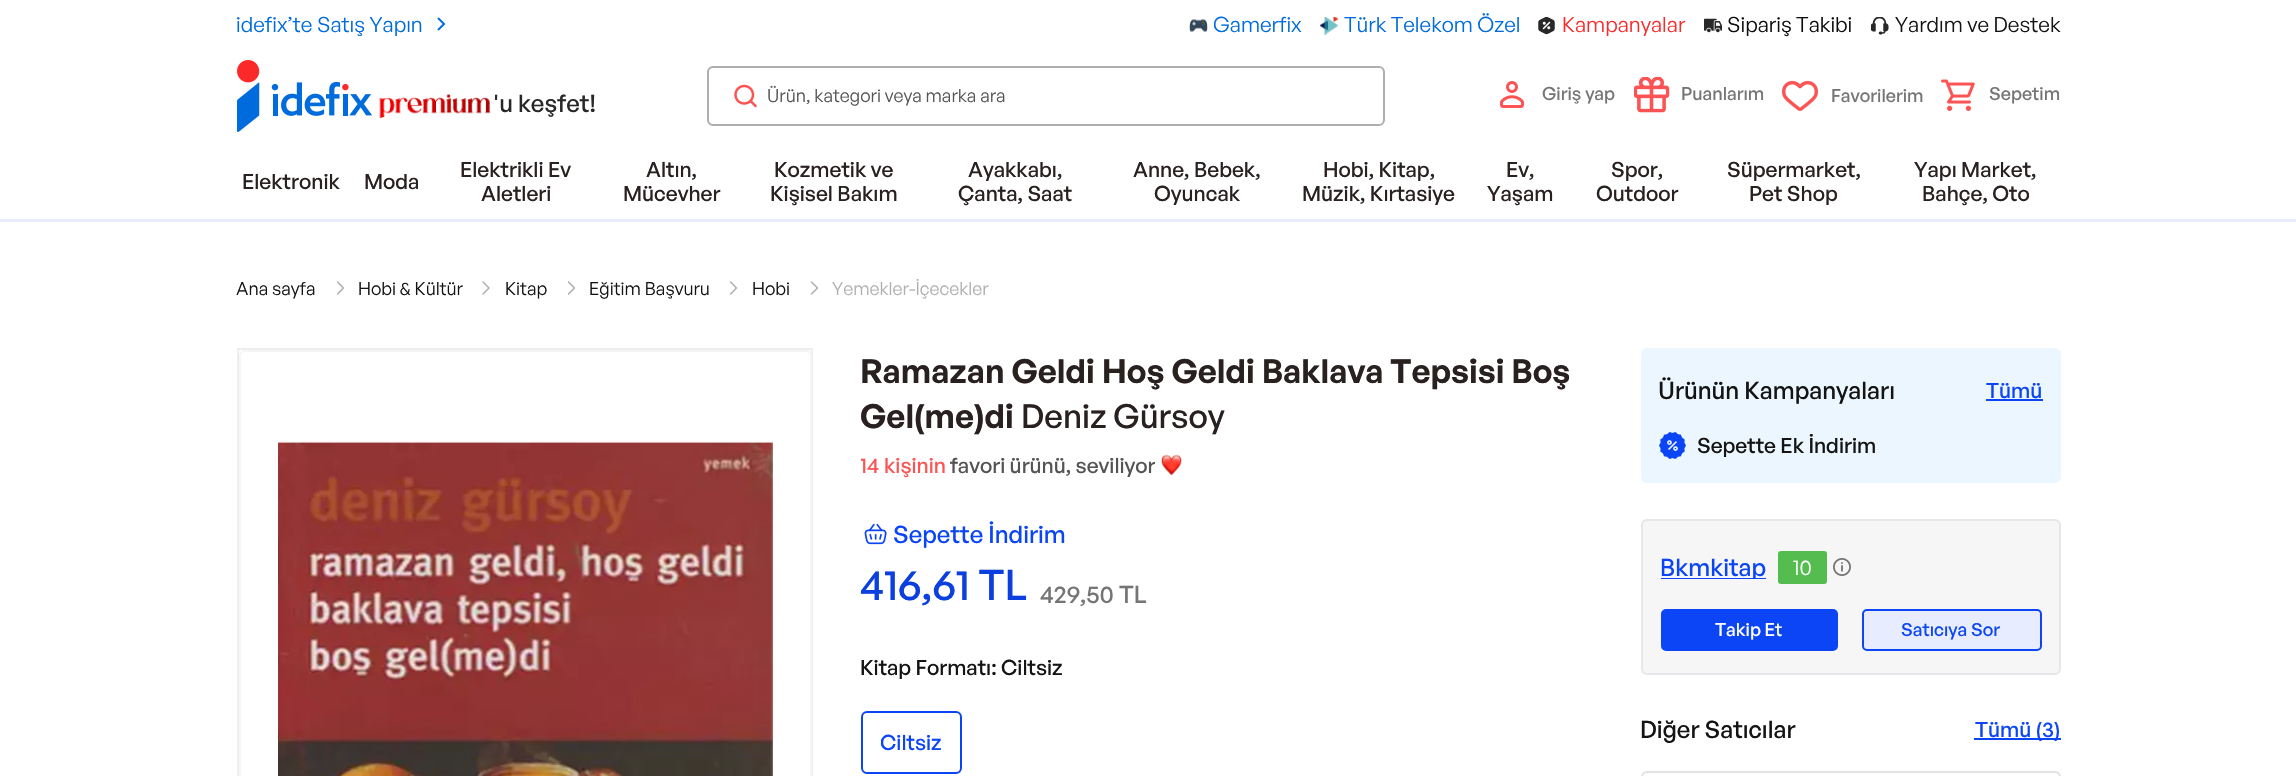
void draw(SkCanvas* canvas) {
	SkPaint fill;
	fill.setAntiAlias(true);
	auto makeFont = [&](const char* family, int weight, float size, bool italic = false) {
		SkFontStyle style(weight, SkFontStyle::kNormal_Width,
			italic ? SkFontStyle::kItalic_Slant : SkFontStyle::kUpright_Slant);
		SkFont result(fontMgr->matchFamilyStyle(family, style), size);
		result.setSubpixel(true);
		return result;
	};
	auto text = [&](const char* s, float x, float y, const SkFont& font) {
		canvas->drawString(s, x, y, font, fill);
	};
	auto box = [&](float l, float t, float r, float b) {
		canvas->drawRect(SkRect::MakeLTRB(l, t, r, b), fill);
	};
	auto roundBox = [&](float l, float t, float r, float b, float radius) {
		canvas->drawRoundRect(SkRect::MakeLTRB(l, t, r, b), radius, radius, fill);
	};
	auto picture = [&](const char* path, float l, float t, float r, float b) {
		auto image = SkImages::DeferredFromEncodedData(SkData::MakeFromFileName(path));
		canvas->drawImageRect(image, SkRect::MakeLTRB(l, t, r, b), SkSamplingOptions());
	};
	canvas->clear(0xFFFFFFFF);
	picture("image0.png", 437, 17, 446, 31);
	picture("image1.png", 1189, 19, 1208, 32);
	picture("image2.png", 1320, 17, 1338, 35);
	picture("image3.png", 1538, 17, 1555, 35);
	picture("image4.png", 1704, 18, 1722, 33);
	picture("image5.png", 1871, 17, 1889, 35);
	picture("image6.png", 237, 60, 372, 132);
	picture("image7.png", 379, 94, 491, 119);
	fill.setStyle(SkPaint::kStroke_Style);
	fill.setStrokeWidth(2);
	fill.setColor(0xFFAFAFAF);
	canvas->drawRoundRect(SkRect::MakeLTRB(708, 67, 1384, 125), 5, 5, fill);
	picture("image8.png", 734, 84, 757, 108);
	picture("image9.png", 1500, 81, 1524, 108);
	picture("image10.png", 1634, 77, 1670, 113);
	picture("image11.png", 1782, 80, 1818, 111);
	picture("image12.png", 1941, 79, 1975, 111);
	fill.setStyle(SkPaint::kFill_Style);
	fill.setColor(0xFFE7ECFE);
	box(0, 219, 2296, 222);
	picture("image13.png", 336, 281, 345, 295);
	picture("image14.png", 482, 281, 490, 295);
	picture("image13.png", 567, 281, 576, 295);
	picture("image13.png", 729, 281, 738, 295);
	picture("image13.png", 810, 281, 819, 295);
	fill.setStyle(SkPaint::kStroke_Style);
	fill.setColor(0xFFEEEEEE);
	canvas->drawRect(SkRect::MakeLTRB(238, 349, 812, 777), fill);
	fill.setColor(0xFFF5F5F5);
	canvas->drawRoundRect(SkRect::MakeLTRB(240, 351, 811, 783), 5, 5, fill);
	picture("image15.png", 278, 441, 773, 776);
	picture("image16.png", 1161, 454, 1182, 476);
	picture("image17.png", 864, 523, 887, 545);
	fill.setColor(0xFF0C45F5);
	canvas->drawRoundRect(SkRect::MakeLTRB(862, 712, 961, 773), 5, 5, fill);
	fill.setStyle(SkPaint::kFill_Style);
	fill.setColor(0xFFECF6FE);
	roundBox(1641, 348, 2061, 483, 6);
	fill.setColor(0xFF0C45F5);
	box(1986, 399, 2043, 401);
	picture("image18.png", 1659, 432, 1686, 459);
	fill.setColor(0xFFF6F6F6);
	canvas->drawRoundRect(SkRect::MakeLTRB(1642, 520, 2060, 674), 5, 5, fill);
	fill.setStyle(SkPaint::kStroke_Style);
	fill.setColor(0xFFE5E7EB);
	canvas->drawRoundRect(SkRect::MakeLTRB(1642, 520, 2060, 674), 5, 5, fill);
	fill.setStyle(SkPaint::kFill_Style);
	fill.setColor(0xFF0C45F5);
	box(1661, 578, 1766, 579);
	fill.setColor(0xFF55BD4F);
	roundBox(1778, 551, 1827, 584, 3);
	picture("image19.png", 1833, 558, 1851, 576);
	fill.setColor(0xFF0C45F5);
	canvas->drawRoundRect(SkRect::MakeLTRB(1662, 610, 1837, 650), 4, 4, fill);
	fill.setStyle(SkPaint::kStroke_Style);
	canvas->drawRoundRect(SkRect::MakeLTRB(1662, 610, 1837, 650), 4, 4, fill);
	fill.setStyle(SkPaint::kFill_Style);
	fill.setColor(0xFFE7ECFE);
	canvas->drawRoundRect(SkRect::MakeLTRB(1863, 610, 2041, 650), 4, 4, fill);
	fill.setStyle(SkPaint::kStroke_Style);
	fill.setColor(0xFF0C45F5);
	canvas->drawRoundRect(SkRect::MakeLTRB(1863, 610, 2041, 650), 4, 4, fill);
	fill.setStyle(SkPaint::kFill_Style);
	box(1974, 738, 2061, 740);
	fill.setStyle(SkPaint::kStroke_Style);
	fill.setColor(0xFFE2E2E2);
	canvas->drawRoundRect(SkRect::MakeLTRB(1642, 772, 2060, 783), 5, 5, fill);
	canvas->save();
	canvas->clipRect(SkRect::MakeLTRB(237, 12, 423, 36));
	auto font1 = makeFont("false", 400, 21);
	fill.setStyle(SkPaint::kFill_Style);
	fill.setColor(0xFF006BDC);
	text("idefix’te Satış Yapın", 236, 32, font1);
	canvas->restore();
	canvas->save();
	canvas->clipRect(SkRect::MakeLTRB(1214, 12, 1302, 36));
	text("Gamerfix", 1213, 32, font1);
	canvas->restore();
	text("Türk Telekom Özel", 1344, 32, font1);
	fill.setColor(0xFFF92C2C);
	text("Kampanyalar", 1562, 32, font1);
	fill.setColor(0xFF0D0D0D);
	text("Sipariş Takibi", 1727, 32, font1);
	fill.setColor(0xFF141414);
	text("Yardım ve Destek", 1895, 32, font1);
	auto font2 = makeFont("General Sans", 500, 24);
	fill.setColor(0xFF282828);
	text("'u keşfet!", 493, 112, font2);
	auto font3 = makeFont("false", 400, 18);
	fill.setColor(0xFF545454);
	text("Ürün, kategori veya marka ara", 767, 102, font3);
	auto font4 = makeFont("General Sans", 500, 18);
	fill.setColor(0xFF757575);
	text("Giriş yap", 1542, 100, font4);
	text("Puanlarım", 1681, 100, font4);
	text("Favorilerim", 1831, 102, font4);
	text("Sepetim", 1989, 100, font4);
	auto font5 = makeFont("General Sans", 500, 21);
	fill.setColor(0xFF292020);
	text("Elektronik", 242, 189, font5);
	text("Moda", 364, 189, font5);
	text("Elektrikli Ev", 460, 177, font5);
	text("Aletleri", 481, 201, font5);
	text("Altın,", 646, 177, font5);
	text("Mücevher", 623, 201, font5);
	text("Kozmetik ve", 774, 177, font5);
	text("Kişisel Bakım", 770, 201, font5);
	text("Ayakkabı,", 968, 177, font5);
	text("Çanta, Saat", 958, 201, font5);
	text("Anne, Bebek,", 1133, 177, font5);
	text("Oyuncak", 1154, 201, font5);
	text("Hobi, Kitap,", 1323, 177, font5);
	text("Müzik, Kırtasiye", 1302, 201, font5);
	text("Ev,", 1506, 177, font5);
	text("Yaşam", 1487, 201, font5);
	text("Spor,", 1611, 177, font5);
	text("Outdoor", 1596, 201, font5);
	text("Süpermarket,", 1727, 177, font5);
	text("Pet Shop", 1749, 201, font5);
	text("Yapı Market,", 1914, 177, font5);
	text("Bahçe, Oto", 1922, 201, font5);
	fill.setColor(0xFF141414);
	text("Ana sayfa", 236, 295, font3);
	text("Hobi & Kültür", 358, 295, font3);
	text("Kitap", 505, 295, font3);
	text("Eğitim Başvuru", 589, 295, font3);
	text("Hobi", 752, 295, font3);
	fill.setColor(0xFFAFAFAF);
	text("Yemekler-İçecekler", 832, 295, font3);
	auto font6 = makeFont("General Sans", 600, 33);
	fill.setColor(0xFF292020);
	text("Ramazan Geldi Hoş Geldi Baklava Tepsisi Boş", 860, 383, font6);
	text("Gel(me)di", 860, 428, font6);
	auto font7 = makeFont("General Sans", 500, 33);
	text("Deniz Gürsoy", 1021, 428, font7);
	canvas->save();
	canvas->clipRect(SkRect::MakeLTRB(861, 452, 1155, 479));
	fill.setColor(0xFFFC5454);
	text("14", 860, 473, font5);
	canvas->restore();
	text("kişinin", 884, 473, font5);
	canvas->save();
	canvas->clipRect(SkRect::MakeLTRB(861, 452, 1155, 479));
	fill.setColor(0xFF545454);
	text("favori ürünü, seviliyor", 950, 473, font5);
	canvas->restore();
	fill.setColor(0xFF0C45F5);
	text("Sepette İndirim", 893, 543, font2);
	auto font8 = makeFont("General Sans", 500, 42);
	fill.setColor(0xFF0B3FDF);
	text("416,61 TL", 860, 600, font8);
	fill.setColor(0xFF757575);
	text("429,50 TL", 1040, 603, font2);
	fill.setColor(0xFF141414);
	text("Kitap Formatı: Ciltsiz", 860, 675, font5);
	canvas->save();
	canvas->clipRect(SkRect::MakeLTRB(881, 731, 942, 755));
	fill.setColor(0xFF0C45F5);
	text("Ciltsiz", 880, 750, font5);
	canvas->restore();
	fill.setColor(0xFF141414);
	text("Ürünün Kampanyaları", 1658, 399, font2);
	fill.setColor(0xFF0C45F5);
	text("Tümü", 1986, 398, font5);
	fill.setColor(0xFF141414);
	text("Sepette Ek İndirim", 1697, 453, font5);
	canvas->save();
	canvas->clipRect(SkRect::MakeLTRB(1661, 555, 1766, 579));
	fill.setColor(0xFF0C45F5);
	text("Bkmkitap", 1660, 576, font2);
	canvas->restore();
	fill.setColor(0xFFFFFFFF);
	text("10", 1793, 575, font1);
	text("Takip Et", 1715, 636, font4);
	fill.setColor(0xFF0C45F5);
	text("Satıcıya Sor", 1901, 636, font4);
	fill.setColor(0xFF141414);
	text("Diğer Satıcılar", 1640, 738, font2);
	fill.setColor(0xFF0C45F5);
	text("Tümü (3)", 1975, 737, font5);
}
